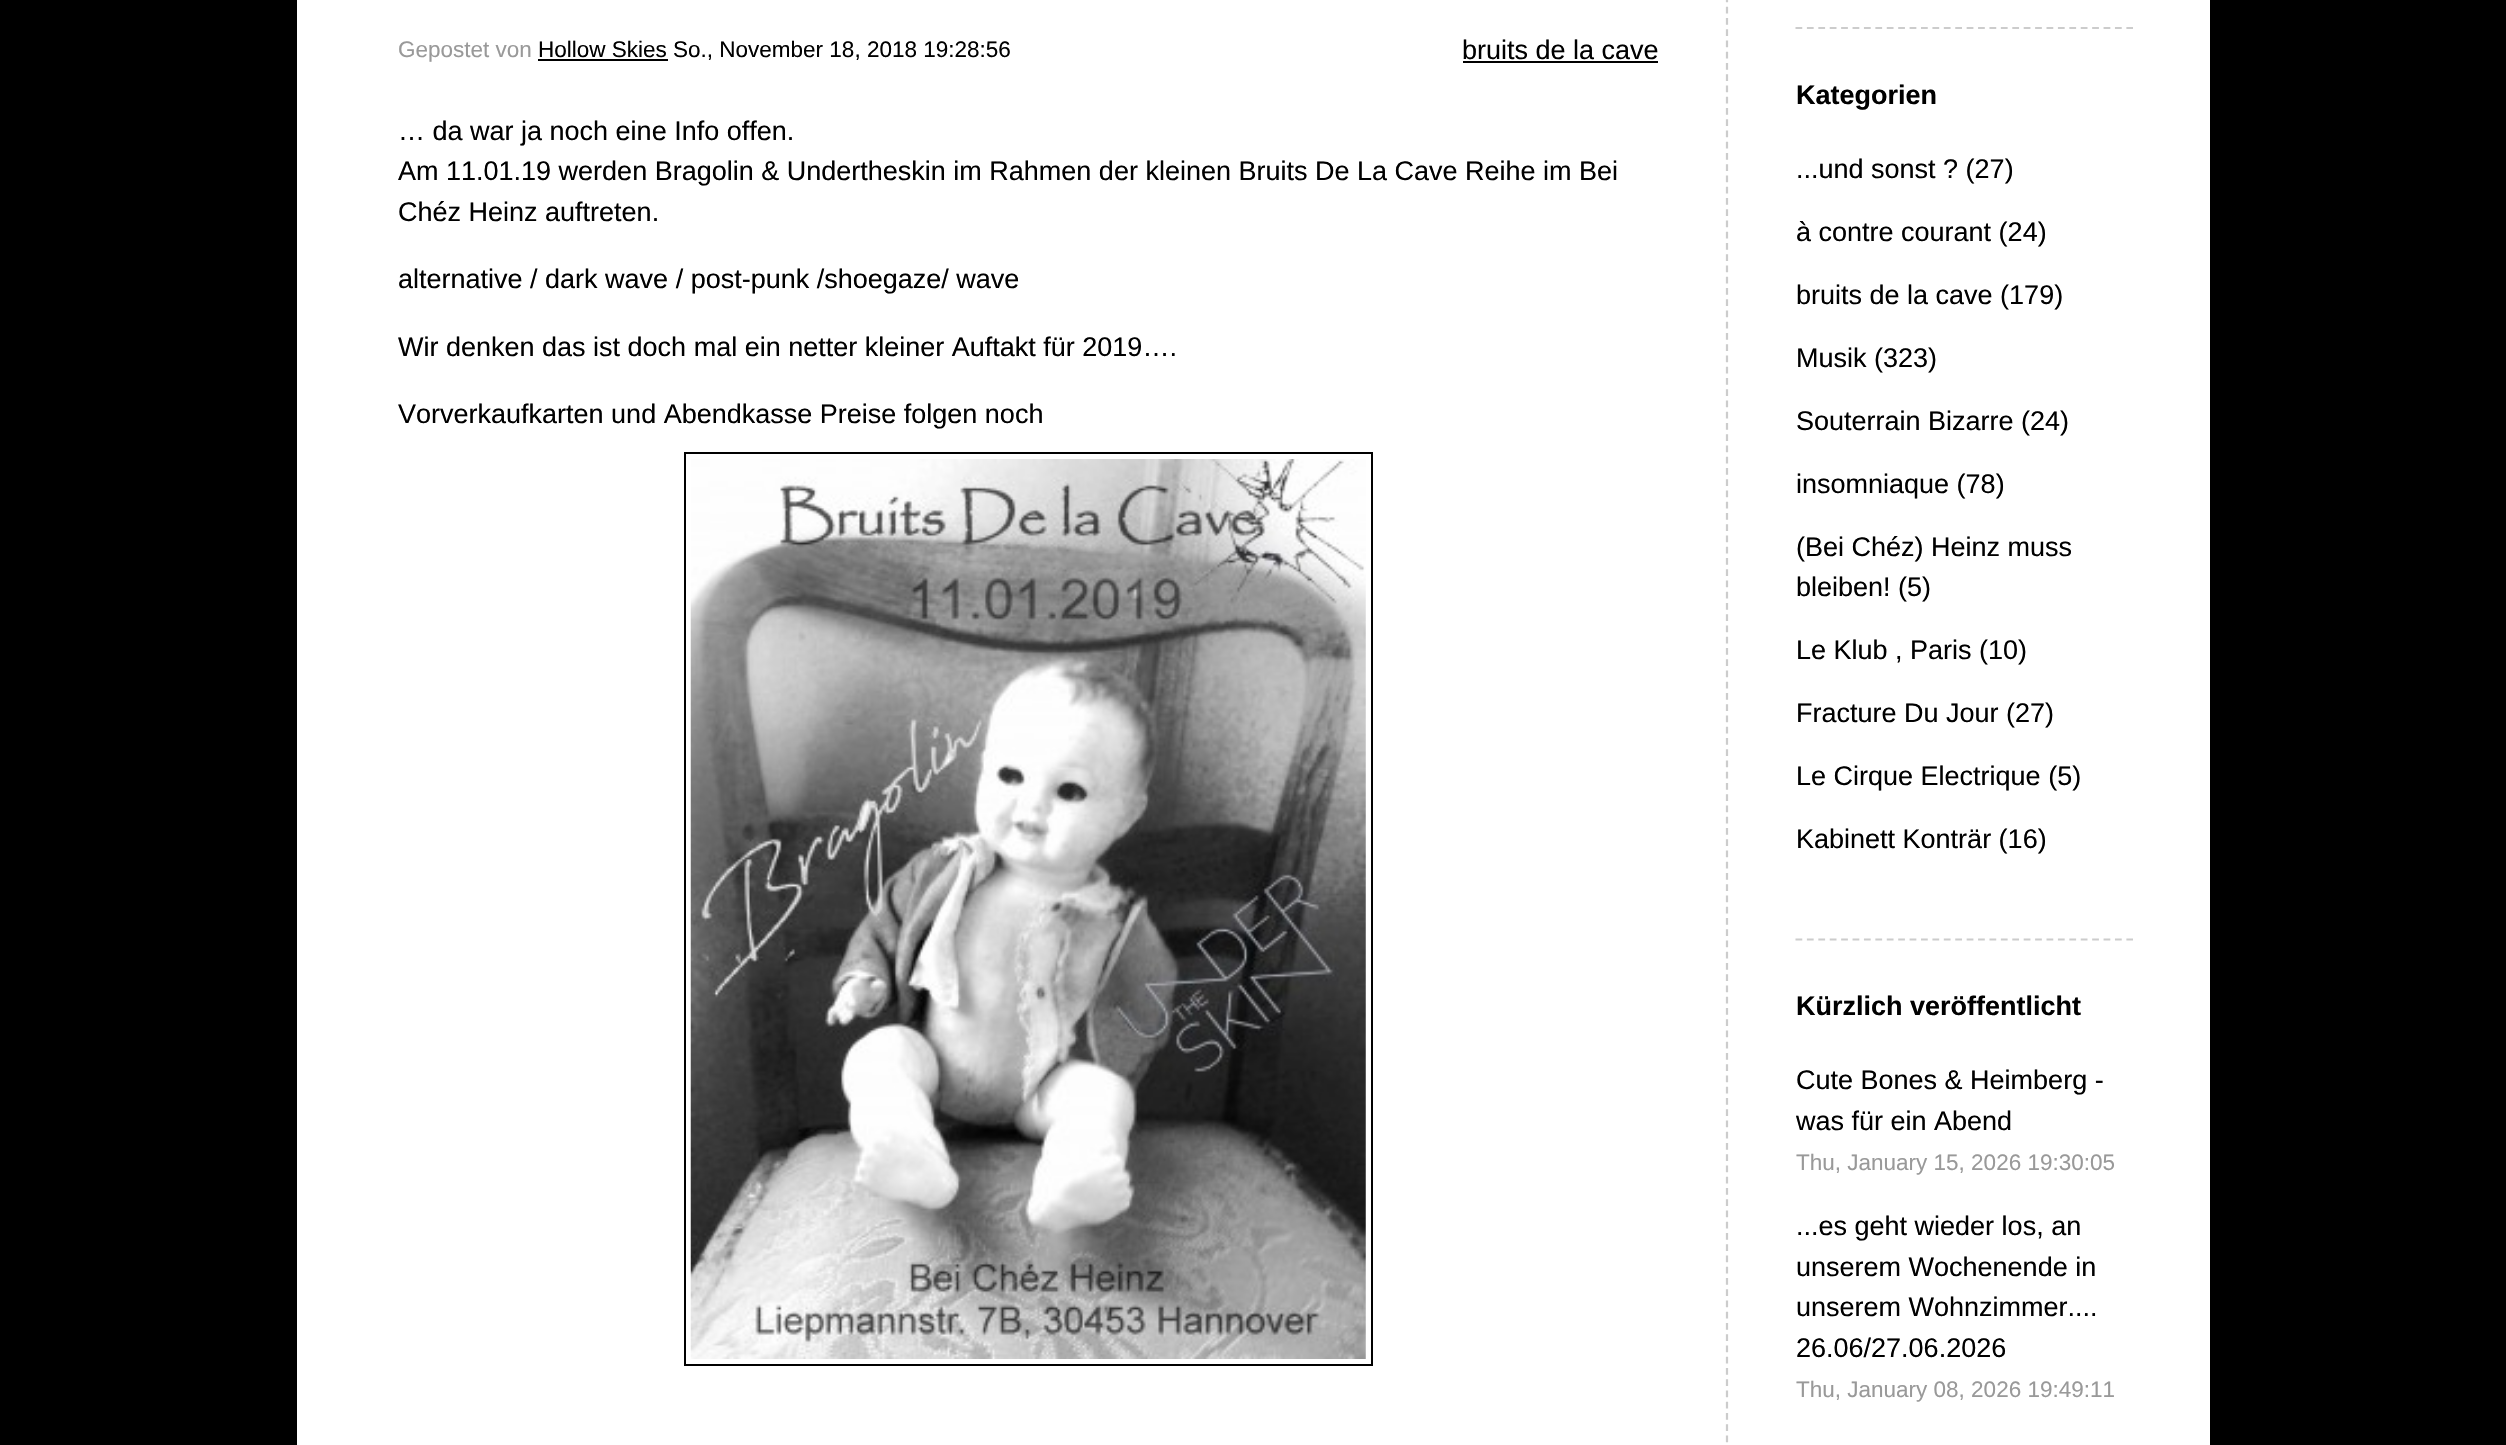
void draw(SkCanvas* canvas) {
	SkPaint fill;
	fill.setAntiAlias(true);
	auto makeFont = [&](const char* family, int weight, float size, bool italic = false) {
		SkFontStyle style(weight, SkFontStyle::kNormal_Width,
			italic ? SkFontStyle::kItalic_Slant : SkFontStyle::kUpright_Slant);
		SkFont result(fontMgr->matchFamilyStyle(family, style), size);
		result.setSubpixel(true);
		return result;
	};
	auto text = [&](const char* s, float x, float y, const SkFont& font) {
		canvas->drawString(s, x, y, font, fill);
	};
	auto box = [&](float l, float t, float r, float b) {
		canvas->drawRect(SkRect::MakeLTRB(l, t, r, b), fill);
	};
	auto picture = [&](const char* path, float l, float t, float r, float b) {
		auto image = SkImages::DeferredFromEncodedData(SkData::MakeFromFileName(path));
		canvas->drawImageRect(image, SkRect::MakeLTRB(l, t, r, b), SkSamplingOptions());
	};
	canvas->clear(0xFF000000);
	fill.setColor(0xFFFFFFFF);
	box(297, 0, 2210, 1445);
	fill.setColor(0xFF000000);
	box(538, 59, 668, 61);
	box(1463, 61, 1658, 63);
	fill.setStyle(SkPaint::kStroke_Style);
	fill.setStrokeWidth(2);
	canvas->drawRect(SkRect::MakeLTRB(685, 453, 1372, 1365), fill);
	picture("image0.png", 690, 459, 1366, 1359);
	fill.setStrokeWidth(2.2f);
	fill.setColor(0xFFCCCCCC);
	fill.setPathEffect(SkDashPathEffect::Make({{6.75f, 4.5f}}, 0));
	canvas->drawPath(SkPathBuilder().moveTo(1727, -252).lineTo(1727, 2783).detach(), fill);
	fill.setPathEffect(nullptr);
	fill.setPathEffect(SkDashPathEffect::Make({{6.75f, 4.66f}}, 0));
	canvas->drawPath(SkPathBuilder().moveTo(1795.5f, 28).lineTo(2133, 28).detach(), fill);
	fill.setPathEffect(nullptr);
	fill.setPathEffect(SkDashPathEffect::Make({{6.75f, 4.66f}}, 0));
	canvas->drawPath(SkPathBuilder().moveTo(1795.5f, 939.5f).lineTo(2133, 939.5f).detach(), fill);
	fill.setPathEffect(nullptr);
	auto font1 = makeFont("Liberation Sans", 400, 22.5f);
	fill.setStyle(SkPaint::kFill_Style);
	fill.setColor(0xFF999999);
	text("Gepostet von", 398, 57, font1);
	fill.setColor(0xFF000000);
	text("Hollow Skies So., November 18, 2018 19:28:56", 538, 57, font1);
	auto font2 = makeFont("Liberation Sans", 400, 27);
	text("bruits de la cave", 1462, 59, font2);
	text("… da war ja noch eine Info offen.", 398, 140, font2);
	text("Am 11.01.19 werden Bragolin & Undertheskin im Rahmen der kleinen Bruits De La Cave Reihe im Bei", 398, 180, font2);
	text("Chéz Heinz auftreten.", 398, 221, font2);
	text("alternative / dark wave / post-punk /shoegaze/ wave", 398, 288, font2);
	text("Wir denken das ist doch mal ein netter kleiner Auftakt für 2019….", 398, 356, font2);
	text("Vorverkaufkarten und Abendkasse Preise folgen noch", 398, 423, font2);
	auto font3 = makeFont("Liberation Sans", 700, 27);
	text("Kategorien", 1796, 104, font3);
	text("...und sonst ? (27)", 1796, 178, font2);
	text("à contre courant (24)", 1796, 241, font2);
	text("bruits de la cave (179)", 1796, 304, font2);
	text("Musik (323)", 1796, 367, font2);
	text("Souterrain Bizarre (24)", 1796, 430, font2);
	text("insomniaque (78)", 1796, 493, font2);
	text("(Bei Chéz) Heinz muss", 1796, 556, font2);
	text("bleiben! (5)", 1796, 596, font2);
	text("Le Klub , Paris (10)", 1796, 659, font2);
	text("Fracture Du Jour (27)", 1796, 722, font2);
	text("Le Cirque Electrique (5)", 1796, 785, font2);
	text("Kabinett Konträr (16)", 1796, 848, font2);
	text("Kürzlich veröffentlicht", 1796, 1015, font3);
	text("Cute Bones & Heimberg -", 1796, 1089, font2);
	canvas->save();
	canvas->clipRect(SkRect::MakeLTRB(1796, 986, 2133, 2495));
	text("was für ein Abend", 1796, 1130, font2);
	canvas->restore();
	fill.setColor(0xFF999999);
	text("Thu, January 15, 2026 19:30:05", 1796, 1170, font1);
	fill.setColor(0xFF000000);
	text("...es geht wieder los, an", 1796, 1235, font2);
	text("unserem Wochenende in", 1796, 1276, font2);
	text("unserem Wohnzimmer....", 1796, 1316, font2);
	text("26.06/27.06.2026", 1796, 1357, font2);
	fill.setColor(0xFF999999);
	text("Thu, January 08, 2026 19:49:11", 1796, 1397, font1);
}
